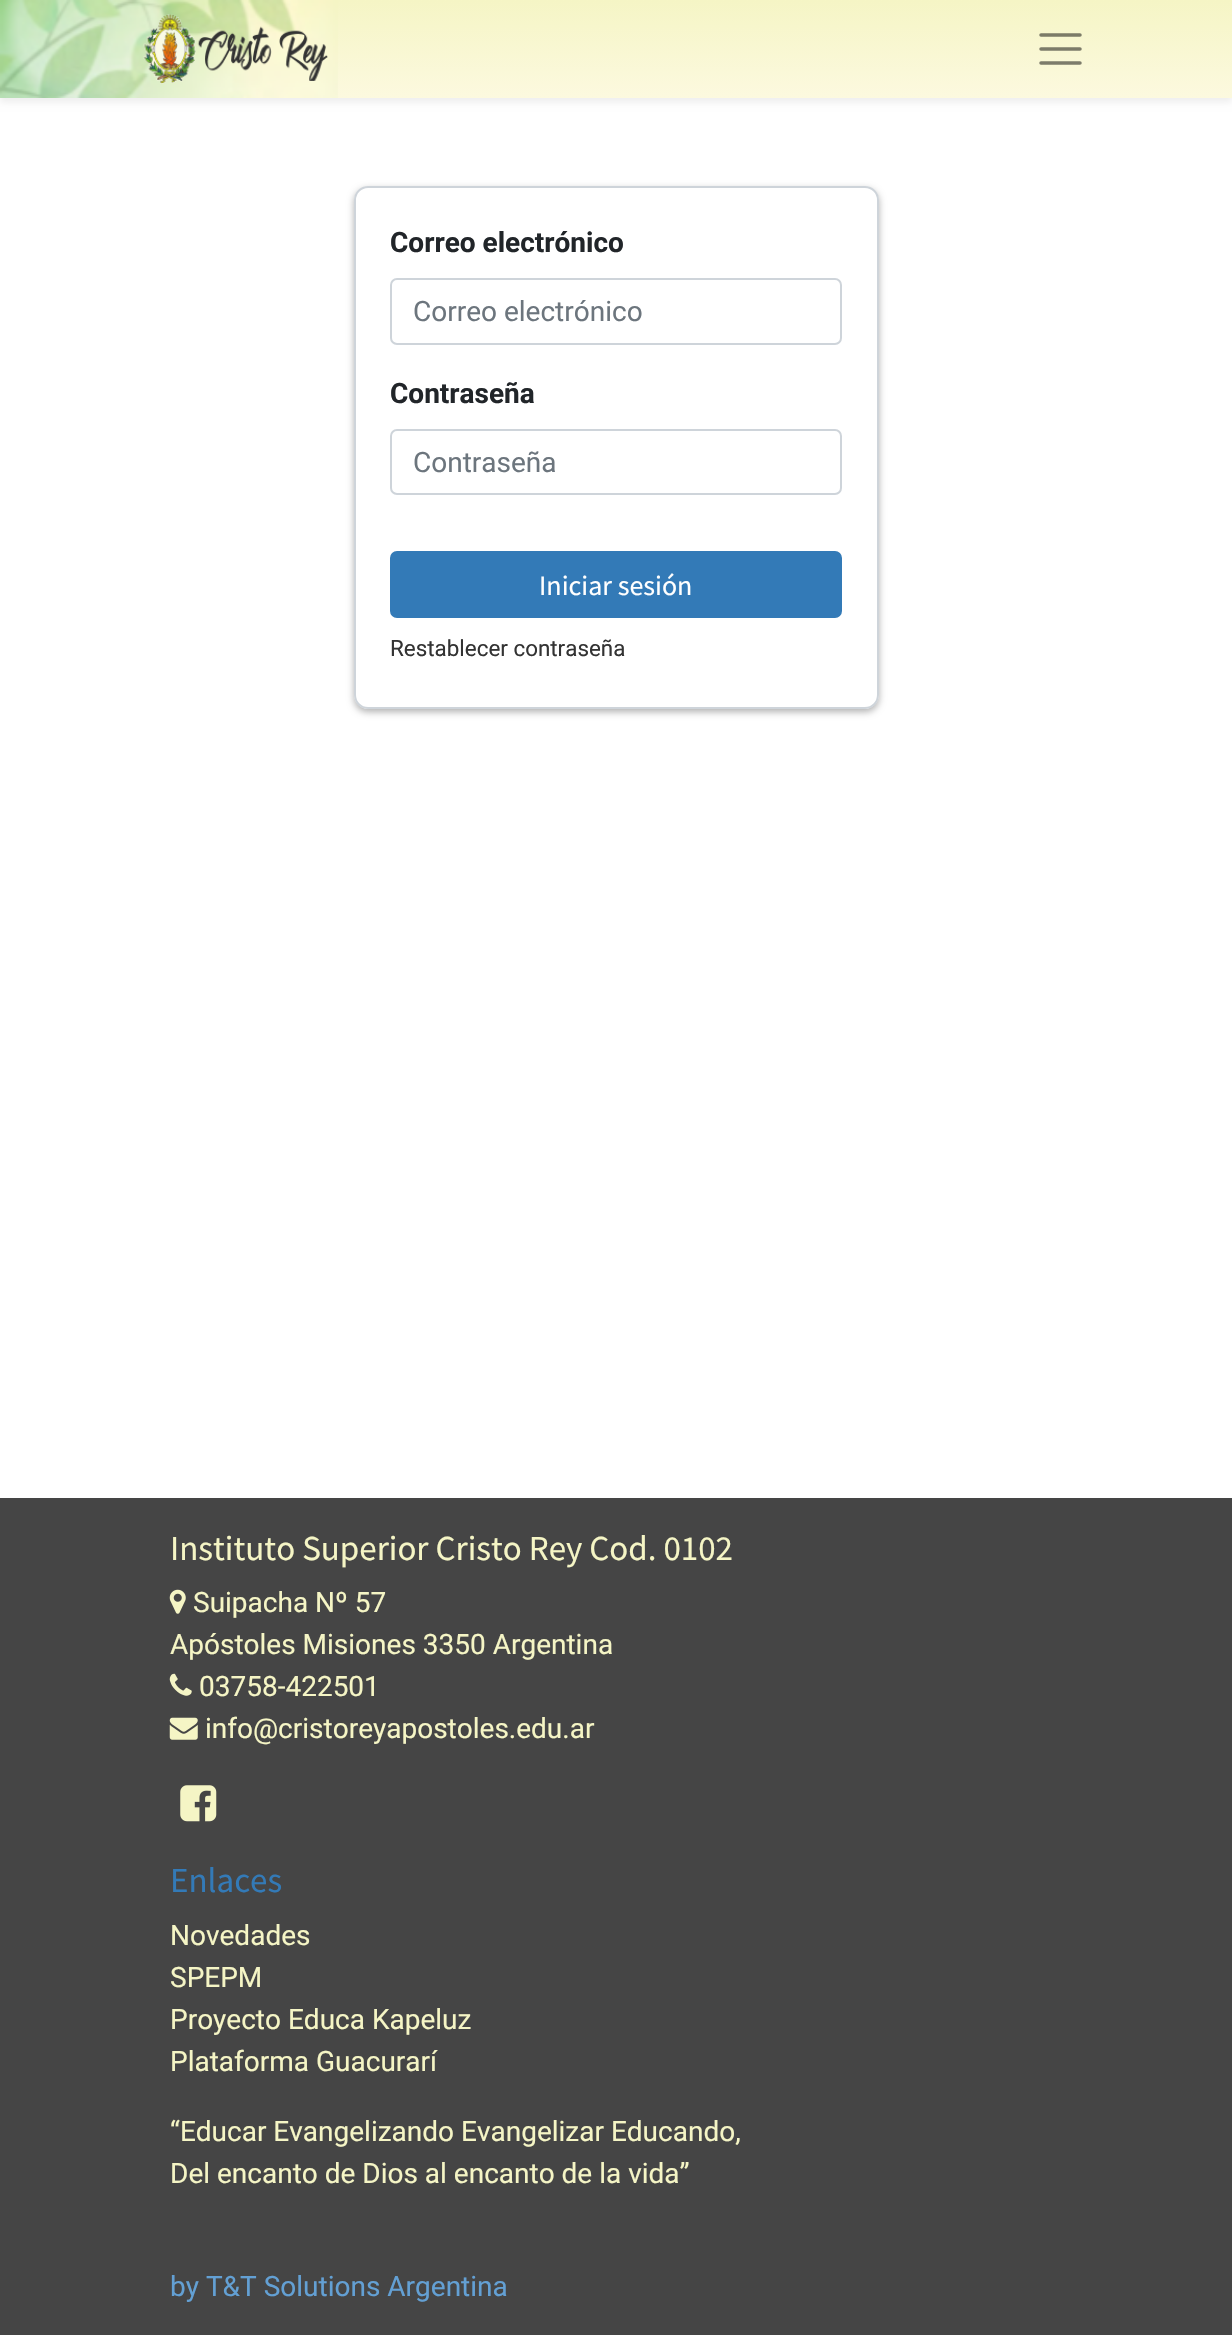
void draw(SkCanvas* canvas) {
	SkPaint fill;
	fill.setAntiAlias(true);
	auto makeFont = [&](const char* family, int weight, float size, bool italic = false) {
		SkFontStyle style(weight, SkFontStyle::kNormal_Width,
			italic ? SkFontStyle::kItalic_Slant : SkFontStyle::kUpright_Slant);
		SkFont result(fontMgr->matchFamilyStyle(family, style), size);
		result.setSubpixel(true);
		return result;
	};
	auto text = [&](const char* s, float x, float y, const SkFont& font) {
		canvas->drawString(s, x, y, font, fill);
	};
	auto box = [&](float l, float t, float r, float b) {
		canvas->drawRect(SkRect::MakeLTRB(l, t, r, b), fill);
	};
	auto picture = [&](const char* path, float l, float t, float r, float b) {
		auto image = SkImages::DeferredFromEncodedData(SkData::MakeFromFileName(path));
		canvas->drawImageRect(image, SkRect::MakeLTRB(l, t, r, b), SkSamplingOptions());
	};
	canvas->clear(0xFFFFFFFF);
	fill.setColor(0x12000000);
	fill.setMaskFilter(SkMaskFilter::MakeBlur(kNormal_SkBlurStyle, 3.5f));
	canvas->drawRect(SkRect::MakeLTRB(0, 4, 1232, 102), fill);
	fill.setMaskFilter(nullptr);
	picture("image0.png", 0, 0, 1232, 98);
	picture("image1.png", 143, 14, 328, 84);
	fill.setStyle(SkPaint::kStroke_Style);
	fill.setStrokeWidth(3.5f);
	fill.setStrokeCap(SkPaint::kRound_Cap);
	fill.setColor(0x80000000);
	canvas->drawPath(SkPathBuilder().moveTo(1041, 35).lineTo(1080, 35).moveTo(1041, 49).lineTo(1080, 49).moveTo(1041, 63).lineTo(1080, 63).detach(), fill);
	canvas->save();
	canvas->clipPath(SkPathBuilder(SkPathFillType::kEvenOdd).moveTo(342, 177).lineTo(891, 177).lineTo(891, 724).lineTo(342, 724).close().moveTo(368, 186).lineTo(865, 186).cubicTo(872.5f, 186, 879, 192.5f, 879, 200).lineTo(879, 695).cubicTo(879, 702.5f, 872.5f, 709, 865, 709).lineTo(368, 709).cubicTo(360.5f, 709, 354, 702.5f, 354, 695).lineTo(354, 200).cubicTo(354, 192.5f, 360.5f, 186, 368, 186).close().detach(), true);
	fill.setStyle(SkPaint::kFill_Style);
	fill.setColor(0x4D000000);
	fill.setMaskFilter(SkMaskFilter::MakeBlur(kNormal_SkBlurStyle, 3.5f));
	canvas->drawRoundRect(SkRect::MakeLTRB(354, 189, 879, 712), 14, 14, fill);
	fill.setMaskFilter(nullptr);
	canvas->restore();
	fill.setStyle(SkPaint::kStroke_Style);
	fill.setStrokeWidth(2);
	fill.setStrokeCap(SkPaint::kButt_Cap);
	fill.setColor(0xFFCED4DA);
	canvas->drawRoundRect(SkRect::MakeLTRB(355, 187, 878, 708), 13, 13, fill);
	canvas->drawRoundRect(SkRect::MakeLTRB(391, 279, 841, 344), 6, 6, fill);
	canvas->drawRoundRect(SkRect::MakeLTRB(391, 430, 841, 494), 6, 6, fill);
	fill.setStyle(SkPaint::kFill_Style);
	fill.setColor(0xFF337AB7);
	canvas->drawRoundRect(SkRect::MakeLTRB(391, 552, 841, 617), 6, 6, fill);
	fill.setStyle(SkPaint::kStroke_Style);
	canvas->drawRoundRect(SkRect::MakeLTRB(391, 552, 841, 617), 6, 6, fill);
	fill.setStyle(SkPaint::kFill_Style);
	fill.setColor(0xFF454545);
	box(0, 1498, 1232, 2335);
	picture("image2.png", 169, 1589, 186, 1614);
	picture("image3.png", 169, 1673, 192, 1696);
	picture("image4.png", 169, 1717, 198, 1740);
	picture("image5.png", 180, 1785, 217, 1822);
	auto font1 = makeFont("Roboto", 700, 28);
	fill.setColor(0xFF212529);
	text("Correo electrónico", 390, 252, font1);
	auto font2 = makeFont("Roboto", 400, 28);
	fill.setColor(0xFF6C757D);
	text("Correo electrónico", 413, 321, font2);
	fill.setColor(0xFF212529);
	text("Contraseña", 390, 403, font1);
	fill.setColor(0xFF6C757D);
	text("Contraseña", 413, 472, font2);
	auto font3 = makeFont("Source Sans Pro", 400, 28);
	fill.setColor(0xFFFFFFFF);
	text("Iniciar sesión", 539, 595, font3);
	auto font4 = makeFont("Roboto", 400, 22.4f);
	fill.setColor(0xFF333333);
	text("Restablecer contraseña", 390, 656, font4);
	auto font5 = makeFont("Source Sans Pro", 400, 35);
	fill.setColor(0xFFF5F5C5);
	text("Instituto Superior Cristo Rey Cod. 0102", 170, 1560, font5);
	text("Suipacha Nº 57", 193, 1612, font2);
	text("Apóstoles Misiones 3350 Argentina", 170, 1654, font2);
	text("03758-422501", 199, 1696, font2);
	text("info@cristoreyapostoles.edu.ar", 205, 1738, font2);
	fill.setColor(0xFF337AB7);
	text("Enlaces", 170, 1892, font5);
	fill.setColor(0xFFF5F5C5);
	text("Novedades", 170, 1945, font2);
	text("SPEPM", 170, 1987, font2);
	text("Proyecto Educa Kapeluz", 170, 2029, font2);
	text("Plataforma Guacurarí", 170, 2071, font2);
	text("“Educar Evangelizando Evangelizar Educando,", 170, 2141, font2);
	text("Del encanto de Dios al encanto de la vida”", 170, 2183, font2);
	fill.setColor(0xFF63A0D4);
	text("by T&T Solutions Argentina", 170, 2296, font2);
}
